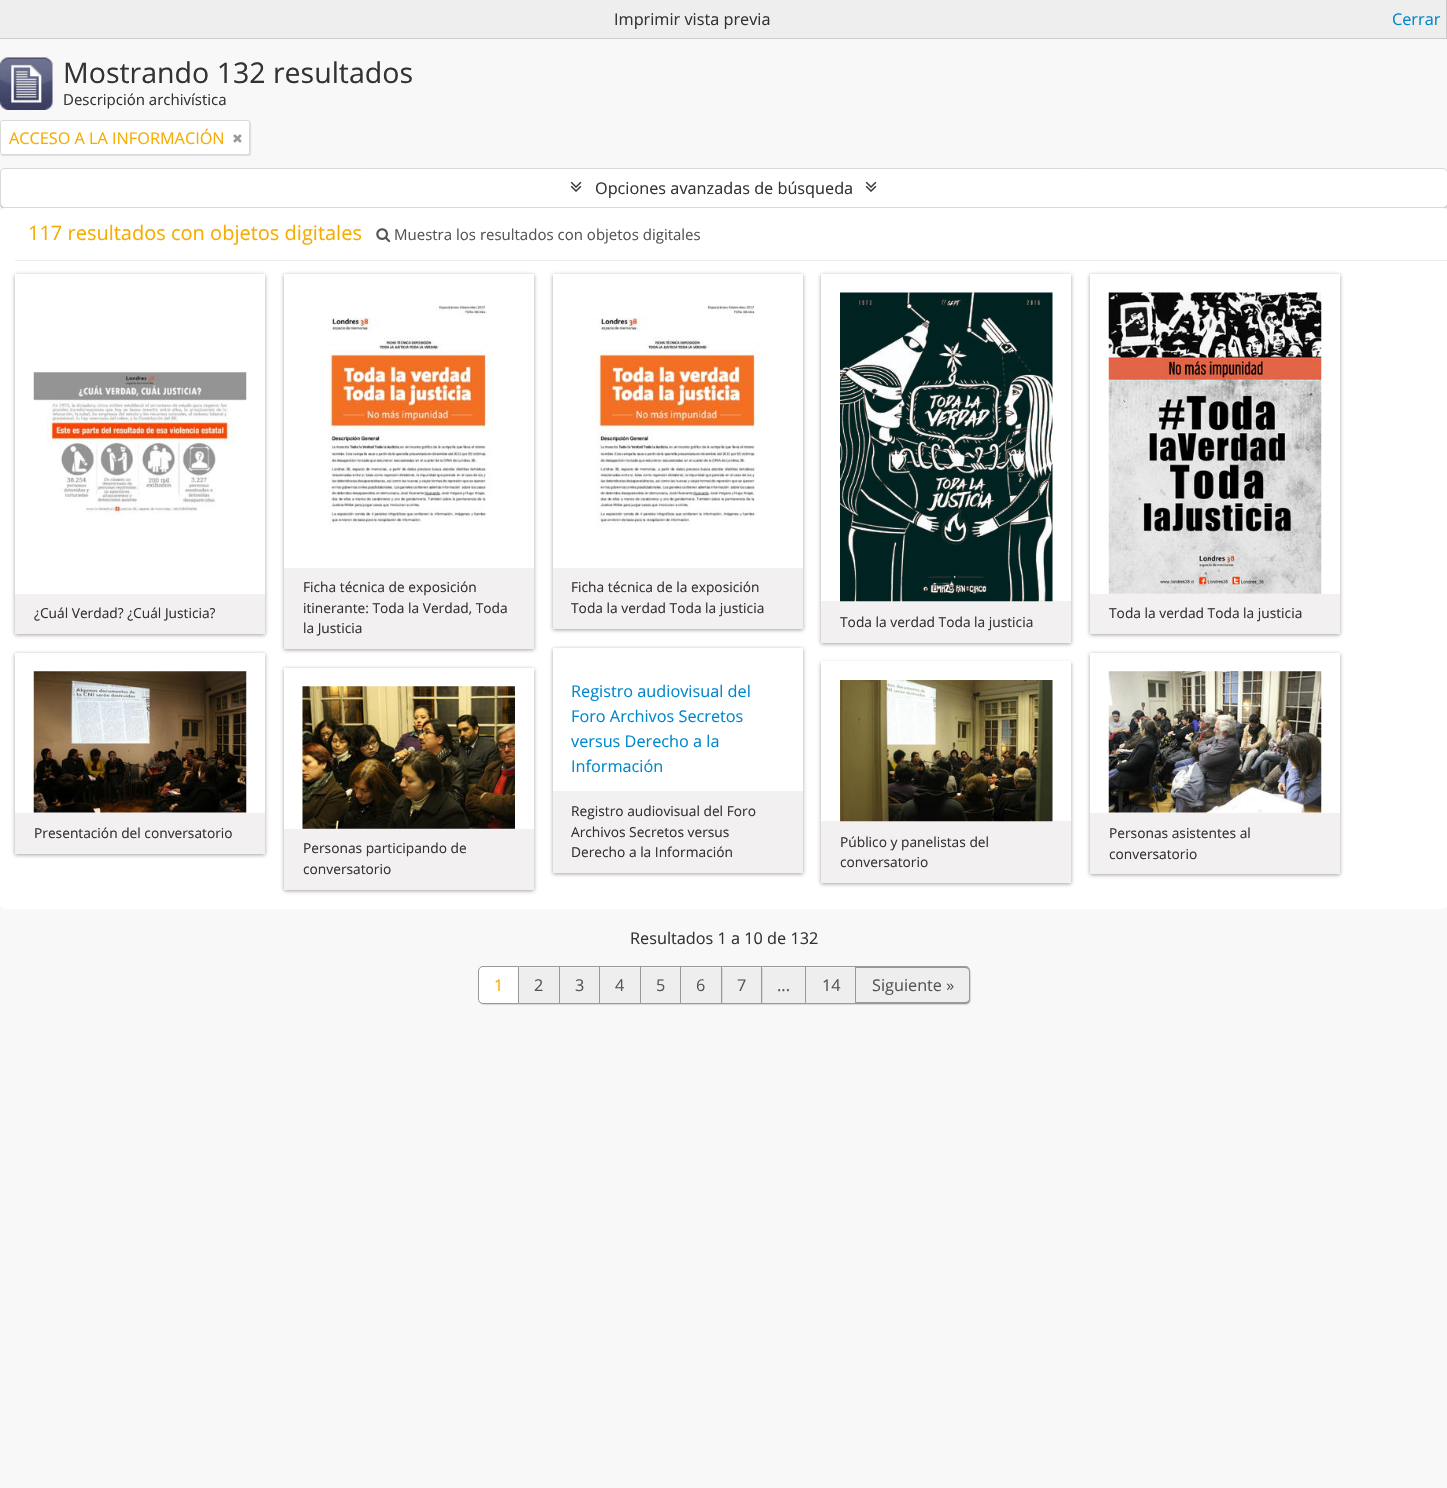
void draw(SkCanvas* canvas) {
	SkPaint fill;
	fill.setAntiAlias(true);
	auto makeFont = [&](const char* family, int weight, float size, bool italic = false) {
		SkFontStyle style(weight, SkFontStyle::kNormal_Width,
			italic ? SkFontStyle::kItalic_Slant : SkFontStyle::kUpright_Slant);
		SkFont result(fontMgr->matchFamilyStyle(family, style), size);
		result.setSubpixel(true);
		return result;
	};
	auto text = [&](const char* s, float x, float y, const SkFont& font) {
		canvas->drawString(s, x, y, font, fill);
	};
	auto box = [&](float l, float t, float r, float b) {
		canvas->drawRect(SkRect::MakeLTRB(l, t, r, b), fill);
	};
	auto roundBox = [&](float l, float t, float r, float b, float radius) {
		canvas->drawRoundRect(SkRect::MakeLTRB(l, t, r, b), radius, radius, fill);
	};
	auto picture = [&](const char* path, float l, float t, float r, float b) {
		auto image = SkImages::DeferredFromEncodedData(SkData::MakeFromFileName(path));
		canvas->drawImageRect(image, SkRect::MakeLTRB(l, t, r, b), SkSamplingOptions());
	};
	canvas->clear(0xFFF8F8F8);
	fill.setColor(0xFFEEEEEE);
	box(0, 0, 1446, 38);
	fill.setColor(0xFFCCCCCC);
	box(1446, 0, 1447, 39);
	box(0, 38, 1447, 39);
	picture("image0.png", 0, 57, 53, 110);
	fill.setColor(0x1A000000);
	fill.setMaskFilter(SkMaskFilter::MakeBlur(kNormal_SkBlurStyle, 0.5f));
	canvas->drawRoundRect(SkRect::MakeLTRB(1, 121, 251, 156), 2.5f, 2.5f, fill);
	fill.setMaskFilter(nullptr);
	fill.setColor(0xFFFFFFFF);
	canvas->drawRoundRect(SkRect::MakeLTRB(0.5f, 120.5f, 249.5f, 154.5f), 2, 2, fill);
	fill.setStyle(SkPaint::kStroke_Style);
	fill.setStrokeWidth(1);
	fill.setColor(0xFFD9D9D9);
	canvas->drawRoundRect(SkRect::MakeLTRB(0.5f, 120.5f, 249.5f, 154.5f), 2, 2, fill);
	picture("image1.png", 233, 134, 242, 143);
	fill.setStyle(SkPaint::kFill_Style);
	fill.setColor(0x33000000);
	fill.setMaskFilter(SkMaskFilter::MakeBlur(kNormal_SkBlurStyle, 0.5f));
	canvas->drawRoundRect(SkRect::MakeLTRB(0, 169, 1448, 209), 5, 5, fill);
	fill.setMaskFilter(nullptr);
	fill.setColor(0xFFFFFFFF);
	canvas->drawRoundRect(SkRect::MakeLTRB(0.5f, 168.5f, 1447.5f, 207.5f), 4.5f, 4.5f, fill);
	fill.setStyle(SkPaint::kStroke_Style);
	fill.setColor(0xFFD9D9D9);
	canvas->drawRoundRect(SkRect::MakeLTRB(0.5f, 168.5f, 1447.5f, 207.5f), 4.5f, 4.5f, fill);
	picture("image2.png", 570, 181, 582, 192);
	picture("image2.png", 865, 181, 877, 192);
	fill.setStyle(SkPaint::kFill_Style);
	fill.setColor(0xFFFFFFFF);
	roundBox(0, 208, 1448, 909, 5);
	fill.setColor(0xFFEEEEEE);
	box(15, 260, 1447, 261);
	picture("image3.png", 376, 228, 391, 243);
	fill.setColor(0x66191919);
	fill.setMaskFilter(SkMaskFilter::MakeBlur(kNormal_SkBlurStyle, 2));
	canvas->drawRect(SkRect::MakeLTRB(15, 275, 265, 635), fill);
	fill.setMaskFilter(nullptr);
	fill.setColor(0xFFFFFFFF);
	box(15, 274, 265, 594);
	picture("image4.png", 33, 369, 247, 520);
	fill.setColor(0xFFF2F0F0);
	box(15, 594, 265, 634);
	fill.setColor(0x66191919);
	fill.setMaskFilter(SkMaskFilter::MakeBlur(kNormal_SkBlurStyle, 2));
	canvas->drawRect(SkRect::MakeLTRB(284, 275, 534, 650), fill);
	fill.setMaskFilter(nullptr);
	fill.setColor(0xFFFFFFFF);
	box(284, 274, 534, 568);
	picture("image5.png", 327, 305, 492, 526);
	fill.setColor(0xFFF2F0F0);
	box(284, 568, 534, 649);
	fill.setColor(0x66191919);
	fill.setMaskFilter(SkMaskFilter::MakeBlur(kNormal_SkBlurStyle, 2));
	canvas->drawRect(SkRect::MakeLTRB(553, 275, 803, 630), fill);
	fill.setMaskFilter(nullptr);
	fill.setColor(0xFFFFFFFF);
	box(553, 274, 803, 568);
	picture("image6.png", 596, 305, 761, 526);
	fill.setColor(0xFFF2F0F0);
	box(553, 568, 803, 629);
	fill.setColor(0x66191919);
	fill.setMaskFilter(SkMaskFilter::MakeBlur(kNormal_SkBlurStyle, 2));
	canvas->drawRect(SkRect::MakeLTRB(1090, 275, 1340, 635), fill);
	fill.setMaskFilter(nullptr);
	fill.setColor(0xFFFFFFFF);
	box(1090, 274, 1340, 594);
	picture("image7.png", 1108, 292, 1322, 594);
	fill.setColor(0xFFF2F0F0);
	box(1090, 594, 1340, 634);
	fill.setColor(0x66191919);
	fill.setMaskFilter(SkMaskFilter::MakeBlur(kNormal_SkBlurStyle, 2));
	canvas->drawRect(SkRect::MakeLTRB(821, 275, 1071, 644), fill);
	fill.setMaskFilter(nullptr);
	fill.setColor(0xFFFFFFFF);
	box(821, 274, 1071, 601);
	fill.setColor(0xFFF2F0F0);
	box(821, 601, 1071, 643);
	picture("image8.png", 840, 292, 1053, 602);
	fill.setColor(0x66191919);
	fill.setMaskFilter(SkMaskFilter::MakeBlur(kNormal_SkBlurStyle, 2));
	canvas->drawRect(SkRect::MakeLTRB(15, 654, 265, 855), fill);
	fill.setMaskFilter(nullptr);
	fill.setColor(0xFFFFFFFF);
	box(15, 653, 265, 813);
	picture("image9.png", 33, 671, 247, 813);
	fill.setColor(0xFFF2F0F0);
	box(15, 813, 265, 854);
	fill.setColor(0x66191919);
	fill.setMaskFilter(SkMaskFilter::MakeBlur(kNormal_SkBlurStyle, 2));
	canvas->drawRect(SkRect::MakeLTRB(284, 669, 534, 891), fill);
	fill.setMaskFilter(nullptr);
	fill.setColor(0xFFFFFFFF);
	box(284, 668, 534, 829);
	picture("image10.png", 302, 686, 515, 829);
	fill.setColor(0xFFF2F0F0);
	box(284, 829, 534, 890);
	fill.setColor(0x66191919);
	fill.setMaskFilter(SkMaskFilter::MakeBlur(kNormal_SkBlurStyle, 2));
	canvas->drawRect(SkRect::MakeLTRB(553, 649, 803, 874), fill);
	fill.setMaskFilter(nullptr);
	fill.setColor(0xFFFFFFFF);
	box(553, 648, 803, 791);
	fill.setColor(0xFFF2F0F0);
	box(553, 791, 803, 873);
	fill.setColor(0x66191919);
	fill.setMaskFilter(SkMaskFilter::MakeBlur(kNormal_SkBlurStyle, 2));
	canvas->drawRect(SkRect::MakeLTRB(821, 663, 1071, 884), fill);
	fill.setMaskFilter(nullptr);
	fill.setColor(0xFFFFFFFF);
	box(821, 661, 1071, 821);
	fill.setColor(0xFFF2F0F0);
	box(821, 821, 1071, 883);
	picture("image11.png", 840, 680, 1053, 822);
	fill.setColor(0x66191919);
	fill.setMaskFilter(SkMaskFilter::MakeBlur(kNormal_SkBlurStyle, 2));
	canvas->drawRect(SkRect::MakeLTRB(1090, 654, 1340, 875), fill);
	fill.setMaskFilter(nullptr);
	fill.setColor(0xFFFFFFFF);
	box(1090, 653, 1340, 813);
	picture("image12.png", 1108, 671, 1322, 813);
	fill.setColor(0xFFF2F0F0);
	box(1090, 813, 1340, 874);
	fill.setColor(0x26191919);
	fill.setMaskFilter(SkMaskFilter::MakeBlur(kNormal_SkBlurStyle, 0.5f));
	canvas->drawRoundRect(SkRect::MakeLTRB(479, 968, 971, 1005), 5, 5, fill);
	fill.setMaskFilter(nullptr);
	fill.setColor(0xFFFFFFFF);
	canvas->drawPath(SkPathBuilder().moveTo(483, 966.5f).lineTo(518.5f, 966.5f).lineTo(518.5f, 1003.5f).lineTo(483, 1003.5f).cubicTo(480.5f, 1003.5f, 478.5f, 1001.5f, 478.5f, 999).lineTo(478.5f, 971).cubicTo(478.5f, 968.5f, 480.5f, 966.5f, 483, 966.5f).close().detach(), fill);
	fill.setStyle(SkPaint::kStroke_Style);
	fill.setColor(0xFF999999);
	canvas->drawPath(SkPathBuilder().moveTo(483, 966.5f).lineTo(518.5f, 966.5f).lineTo(518.5f, 1003.5f).lineTo(483, 1003.5f).cubicTo(480.5f, 1003.5f, 478.5f, 1001.5f, 478.5f, 999).lineTo(478.5f, 971).cubicTo(478.5f, 968.5f, 480.5f, 966.5f, 483, 966.5f).close().detach(), fill);
	fill.setStyle(SkPaint::kFill_Style);
	fill.setColor(0xFFEEEEEE);
	box(519, 968, 559, 1003);
	fill.setColor(0xFF999999);
	box(519, 966, 856, 967);
	box(559, 966, 560, 1004);
	box(519, 1003, 560, 1004);
	fill.setColor(0xFFEEEEEE);
	box(560, 968, 599, 1003);
	fill.setColor(0xFF999999);
	box(599, 966, 600, 1004);
	box(560, 1003, 600, 1004);
	fill.setColor(0xFFEEEEEE);
	box(600, 968, 640, 1003);
	fill.setColor(0xFF999999);
	box(640, 966, 641, 1004);
	box(600, 1003, 641, 1004);
	fill.setColor(0xFFEEEEEE);
	box(641, 968, 680, 1003);
	fill.setColor(0xFF999999);
	box(680, 966, 681, 1004);
	box(641, 1003, 681, 1004);
	fill.setColor(0xFFEEEEEE);
	box(681, 968, 721, 1003);
	fill.setColor(0xFF999999);
	box(721, 966, 722, 1004);
	box(681, 1003, 723, 1004);
	fill.setColor(0xFFEEEEEE);
	box(723, 968, 761, 1003);
	fill.setColor(0xFF999999);
	box(761, 966, 762, 1004);
	box(723, 1003, 763, 1004);
	fill.setColor(0xFFEEEEEE);
	box(763, 968, 805, 1003);
	fill.setColor(0xFF999999);
	box(805, 966, 806, 1004);
	box(763, 1003, 806, 1004);
	fill.setColor(0xFFEEEEEE);
	box(806, 968, 855, 1003);
	fill.setColor(0xFF999999);
	box(855, 966, 856, 1004);
	box(806, 1003, 856, 1004);
	fill.setColor(0xFFEEEEEE);
	canvas->drawPath(SkPathBuilder().moveTo(856, 968).lineTo(965, 968).cubicTo(967, 968, 969, 970, 969, 972).lineTo(969, 999).cubicTo(969, 1001, 967, 1003, 965, 1003).lineTo(856, 1003).close().detach(), fill);
	fill.setColor(0xFF999999);
	canvas->drawPath(SkPathBuilder(SkPathFillType::kEvenOdd).moveTo(856, 966).lineTo(965, 966).cubicTo(968, 966, 970, 968, 970, 971).lineTo(970, 999).cubicTo(970, 1002, 968, 1004, 965, 1004).lineTo(856, 1004).close().moveTo(856, 968).lineTo(965, 968).cubicTo(967, 968, 969, 969, 969, 971).lineTo(969, 999).cubicTo(969, 1001, 967, 1002, 965, 1002).lineTo(856, 1002).close().detach(), fill);
	auto font1 = makeFont("Open Sans", 400, 16.25f);
	fill.setColor(0xFF333333);
	text("Imprimir vista previa", 614, 25, font1);
	fill.setColor(0xFF0088CC);
	text("Cerrar", 1392, 25, font1);
	auto font2 = makeFont("Open Sans", 400, 28.5f);
	fill.setColor(0xFF333333);
	text("Mostrando 132 resultados", 63, 83, font2);
	auto font3 = makeFont("Open Sans", 400, 15);
	text("Descripción archivística", 63, 105, font3);
	fill.setColor(0xFFF6AC00);
	text("ACCESO A LA INFORMACIÓN", 9, 144, font1);
	fill.setColor(0xFF333333);
	text("Opciones avanzadas de búsqueda", 595, 194, font1);
	auto font4 = makeFont("Open Sans", 400, 20);
	fill.setColor(0xFFF6AC00);
	text("117 resultados con objetos digitales", 28, 240, font4);
	fill.setColor(0xFF555555);
	text("Muestra los resultados con objetos digitales", 394, 240, font3);
	auto font5 = makeFont("Open Sans", 400, 13.75f);
	fill.setColor(0xFF333333);
	text("¿Cuál Verdad? ¿Cuál Justicia?", 34, 618, font5);
	text("Ficha técnica de exposición", 303, 592, font5);
	text("itinerante: Toda la Verdad, Toda", 303, 613, font5);
	text("la Justicia", 303, 633, font5);
	text("Ficha técnica de la exposición", 571, 592, font5);
	text("Toda la verdad Toda la justicia", 571, 613, font5);
	text("Toda la verdad Toda la justicia", 1109, 618, font5);
	text("Toda la verdad Toda la justicia", 840, 627, font5);
	text("Presentación del conversatorio", 34, 838, font5);
	text("Personas participando de", 303, 853, font5);
	text("conversatorio", 303, 874, font5);
	fill.setColor(0xFF0088CC);
	text("Registro audiovisual del", 571, 697, font1);
	text("Foro Archivos Secretos", 571, 722, font1);
	text("versus Derecho a la", 571, 747, font1);
	text("Información", 571, 772, font1);
	fill.setColor(0xFF333333);
	text("Registro audiovisual del Foro", 571, 816, font5);
	text("Archivos Secretos versus", 571, 837, font5);
	text("Derecho a la Información", 571, 857, font5);
	text("Público y panelistas del", 840, 847, font5);
	text("conversatorio", 840, 867, font5);
	text("Personas asistentes al", 1109, 838, font5);
	text("conversatorio", 1109, 859, font5);
	text("Resultados 1 a 10 de 132", 630, 944, font1);
	fill.setColor(0xFFF6AC00);
	text("1", 494, 991, font1);
	fill.setColor(0xFF555555);
	text("2", 534, 991, font1);
	text("3", 575, 991, font1);
	text("4", 615, 991, font1);
	text("5", 656, 991, font1);
	text("6", 696, 991, font1);
	text("7", 737, 991, font1);
	text("...", 777, 991, font1);
	text("14", 822, 991, font1);
	text("Siguiente »", 872, 991, font1);
}
